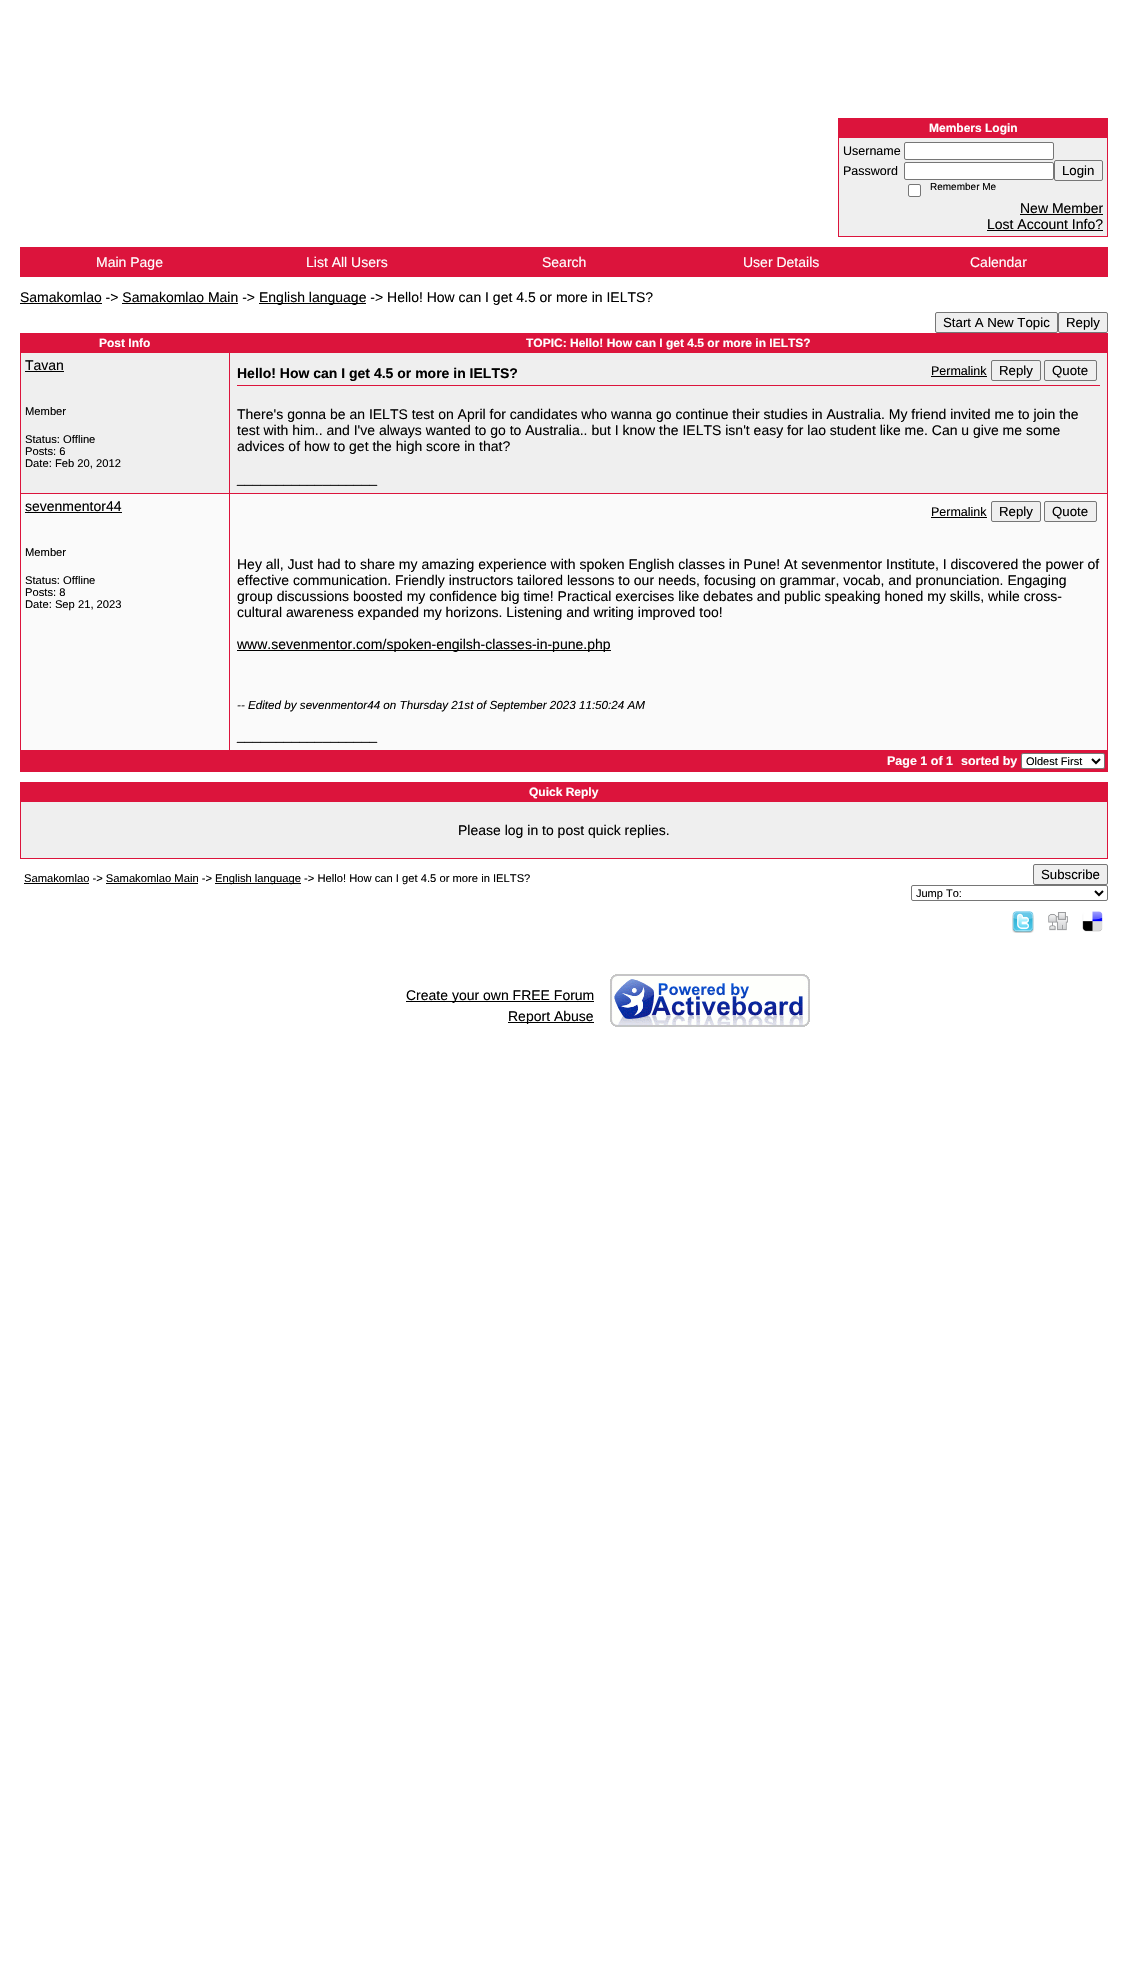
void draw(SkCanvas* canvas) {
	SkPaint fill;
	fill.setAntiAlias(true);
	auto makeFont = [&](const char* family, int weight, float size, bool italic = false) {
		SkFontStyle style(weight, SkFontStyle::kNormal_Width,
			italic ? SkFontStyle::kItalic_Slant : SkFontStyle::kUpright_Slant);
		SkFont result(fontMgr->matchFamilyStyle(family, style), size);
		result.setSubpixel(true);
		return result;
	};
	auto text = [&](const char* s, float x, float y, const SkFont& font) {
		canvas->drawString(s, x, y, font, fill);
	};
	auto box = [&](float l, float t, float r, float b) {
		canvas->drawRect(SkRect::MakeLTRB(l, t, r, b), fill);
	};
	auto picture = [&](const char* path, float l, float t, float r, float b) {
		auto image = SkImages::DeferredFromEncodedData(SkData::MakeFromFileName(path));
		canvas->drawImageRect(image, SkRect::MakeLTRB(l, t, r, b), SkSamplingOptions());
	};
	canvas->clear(0xFFFFFFFF);
	fill.setColor(0xFFEFEFEF);
	box(839, 138, 1107, 236);
	fill.setColor(0xFFDC143C);
	box(838, 118, 1108, 119);
	box(1107, 118, 1108, 237);
	box(838, 236, 1108, 237);
	box(838, 118, 839, 237);
	box(839, 119, 1107, 137);
	box(838, 137, 1108, 138);
	fill.setColor(0xFFFFFFFF);
	canvas->drawRoundRect(SkRect::MakeLTRB(904.5f, 142.5f, 1053.5f, 159.5f), 1.5f, 1.5f, fill);
	fill.setStyle(SkPaint::kStroke_Style);
	fill.setStrokeWidth(1);
	fill.setColor(0xFF767676);
	canvas->drawRoundRect(SkRect::MakeLTRB(904.5f, 142.5f, 1053.5f, 159.5f), 1.5f, 1.5f, fill);
	fill.setStyle(SkPaint::kFill_Style);
	fill.setColor(0xFFFFFFFF);
	canvas->drawRoundRect(SkRect::MakeLTRB(904.5f, 162.5f, 1053.5f, 179.5f), 1.5f, 1.5f, fill);
	fill.setStyle(SkPaint::kStroke_Style);
	fill.setColor(0xFF767676);
	canvas->drawRoundRect(SkRect::MakeLTRB(904.5f, 162.5f, 1053.5f, 179.5f), 1.5f, 1.5f, fill);
	canvas->drawRoundRect(SkRect::MakeLTRB(1054.5f, 160.5f, 1102.5f, 180.5f), 1.5f, 1.5f, fill);
	fill.setStyle(SkPaint::kFill_Style);
	fill.setColor(0xFFFFFFFF);
	canvas->drawRoundRect(SkRect::MakeLTRB(908.5f, 184.5f, 920.5f, 196.5f), 1.5f, 1.5f, fill);
	fill.setStyle(SkPaint::kStroke_Style);
	fill.setColor(0xFF767676);
	canvas->drawRoundRect(SkRect::MakeLTRB(908.5f, 184.5f, 920.5f, 196.5f), 1.5f, 1.5f, fill);
	fill.setStyle(SkPaint::kFill_Style);
	fill.setColor(0xFF000000);
	box(1020, 214, 1103, 215);
	box(987, 230, 1103, 231);
	fill.setStyle(SkPaint::kStroke_Style);
	fill.setColor(0xFFDC143C);
	canvas->drawRect(SkRect::MakeLTRB(20.5f, 247.5f, 1107.5f, 276.5f), fill);
	fill.setStyle(SkPaint::kFill_Style);
	box(21, 248, 1107, 276);
	fill.setColor(0xFF000000);
	box(20, 303, 102, 304);
	box(259, 303, 366, 304);
	box(122, 303, 238, 304);
	fill.setColor(0xFFEFEFEF);
	canvas->drawRoundRect(SkRect::MakeLTRB(935.5f, 312.5f, 1057.5f, 332.5f), 1.5f, 1.5f, fill);
	fill.setStyle(SkPaint::kStroke_Style);
	fill.setColor(0xFF767676);
	canvas->drawRoundRect(SkRect::MakeLTRB(935.5f, 312.5f, 1057.5f, 332.5f), 1.5f, 1.5f, fill);
	fill.setStyle(SkPaint::kFill_Style);
	fill.setColor(0xFFEFEFEF);
	canvas->drawRoundRect(SkRect::MakeLTRB(1058.5f, 312.5f, 1107.5f, 332.5f), 1.5f, 1.5f, fill);
	fill.setStyle(SkPaint::kStroke_Style);
	fill.setColor(0xFF767676);
	canvas->drawRoundRect(SkRect::MakeLTRB(1058.5f, 312.5f, 1107.5f, 332.5f), 1.5f, 1.5f, fill);
	fill.setStyle(SkPaint::kFill_Style);
	fill.setColor(0xFFEFEFEF);
	box(21, 353, 1107, 493);
	fill.setColor(0xFFDC143C);
	box(20, 333, 1108, 334);
	box(1107, 333, 1108, 772);
	box(20, 771, 1108, 772);
	box(20, 333, 21, 772);
	box(21, 334, 229, 352);
	box(229, 352, 1108, 353);
	box(229, 493, 1108, 494);
	box(20, 750, 1108, 751);
	box(229, 493, 230, 751);
	box(20, 493, 230, 494);
	box(229, 352, 230, 494);
	box(20, 352, 230, 353);
	box(229, 333, 230, 353);
	box(230, 334, 1107, 352);
	fill.setColor(0xFF000000);
	box(25, 371, 64, 372);
	box(931, 376, 987, 377);
	fill.setStyle(SkPaint::kStroke_Style);
	fill.setColor(0xFF767676);
	canvas->drawRoundRect(SkRect::MakeLTRB(991.5f, 360.5f, 1040.5f, 380.5f), 1.5f, 1.5f, fill);
	canvas->drawRoundRect(SkRect::MakeLTRB(1044.5f, 360.5f, 1096.5f, 380.5f), 1.5f, 1.5f, fill);
	fill.setStyle(SkPaint::kFill_Style);
	fill.setColor(0xFFDC143C);
	box(237, 385, 1100, 386);
	fill.setColor(0xFFFAFAFA);
	box(21, 494, 229, 750);
	fill.setColor(0xFF000000);
	box(25, 512, 122, 513);
	fill.setColor(0xFFFAFAFA);
	box(230, 494, 1107, 750);
	fill.setColor(0xFF000000);
	box(931, 517, 987, 518);
	fill.setColor(0xFFEFEFEF);
	canvas->drawRoundRect(SkRect::MakeLTRB(991.5f, 501.5f, 1040.5f, 521.5f), 1.5f, 1.5f, fill);
	fill.setStyle(SkPaint::kStroke_Style);
	fill.setColor(0xFF767676);
	canvas->drawRoundRect(SkRect::MakeLTRB(991.5f, 501.5f, 1040.5f, 521.5f), 1.5f, 1.5f, fill);
	fill.setStyle(SkPaint::kFill_Style);
	fill.setColor(0xFFEFEFEF);
	canvas->drawRoundRect(SkRect::MakeLTRB(1044.5f, 501.5f, 1096.5f, 521.5f), 1.5f, 1.5f, fill);
	fill.setStyle(SkPaint::kStroke_Style);
	fill.setColor(0xFF767676);
	canvas->drawRoundRect(SkRect::MakeLTRB(1044.5f, 501.5f, 1096.5f, 521.5f), 1.5f, 1.5f, fill);
	fill.setStyle(SkPaint::kFill_Style);
	fill.setColor(0xFF000000);
	box(237, 650, 611, 651);
	fill.setColor(0xFFDC143C);
	box(21, 751, 1107, 771);
	fill.setColor(0xFFFFFFFF);
	canvas->drawRoundRect(SkRect::MakeLTRB(1021.5f, 753.5f, 1104.5f, 768.5f), 1.5f, 1.5f, fill);
	fill.setStyle(SkPaint::kStroke_Style);
	fill.setColor(0xFF767676);
	canvas->drawRoundRect(SkRect::MakeLTRB(1021.5f, 753.5f, 1104.5f, 768.5f), 1.5f, 1.5f, fill);
	fill.setStrokeWidth(2);
	fill.setColor(0xFF000000);
	canvas->drawPath(SkPathBuilder().moveTo(1092, 759).lineTo(1096, 763).lineTo(1100, 759).detach(), fill);
	fill.setStyle(SkPaint::kFill_Style);
	fill.setColor(0xFFEFEFEF);
	box(21, 802, 1107, 858);
	fill.setColor(0xFFDC143C);
	box(20, 782, 1108, 783);
	box(1107, 782, 1108, 859);
	box(20, 858, 1108, 859);
	box(20, 782, 21, 859);
	box(21, 783, 1107, 801);
	box(20, 801, 1108, 802);
	fill.setColor(0xFF000000);
	box(24, 883, 89, 884);
	box(215, 883, 301, 884);
	box(106, 883, 198, 884);
	fill.setColor(0xFFEFEFEF);
	canvas->drawRoundRect(SkRect::MakeLTRB(1033.5f, 864.5f, 1107.5f, 884.5f), 1.5f, 1.5f, fill);
	fill.setStyle(SkPaint::kStroke_Style);
	fill.setStrokeWidth(1);
	fill.setColor(0xFF767676);
	canvas->drawRoundRect(SkRect::MakeLTRB(1033.5f, 864.5f, 1107.5f, 884.5f), 1.5f, 1.5f, fill);
	canvas->drawRoundRect(SkRect::MakeLTRB(911.5f, 885.5f, 1107.5f, 900.5f), 1.5f, 1.5f, fill);
	fill.setStrokeWidth(2);
	fill.setColor(0xFF000000);
	canvas->drawPath(SkPathBuilder().moveTo(1095, 891).lineTo(1099, 895).lineTo(1103, 891).detach(), fill);
	picture("image0.png", 1012, 911, 1034, 933);
	picture("image1.png", 1048, 912, 1068, 931);
	picture("image2.png", 1082, 911, 1103, 932);
	fill.setStyle(SkPaint::kFill_Style);
	box(406, 1001, 594, 1002);
	box(508, 1022, 594, 1023);
	picture("image3.png", 610, 974, 810, 1027);
	auto font1 = makeFont("Liberation Sans", 700, 12);
	fill.setColor(0xFFFFFFFF);
	text("Members Login", 929, 132, font1);
	auto font2 = makeFont("Liberation Sans", 400, 12.5f);
	fill.setColor(0xFF000000);
	text("Username", 843, 155, font2);
	text("Password", 843, 175, font2);
	auto font3 = makeFont("Liberation Sans", 400, 13.25f);
	text("Login", 1062, 175, font3);
	auto font4 = makeFont("Liberation Sans", 400, 10);
	text("Remember Me", 930, 190, font4);
	auto font5 = makeFont("Liberation Sans", 400, 14);
	text("New Member", 1020, 213, font5);
	text("Lost Account Info?", 987, 229, font5);
	fill.setColor(0xFFFFFFFF);
	text("Main Page", 96, 267, font5);
	text("List All Users", 306, 267, font5);
	text("Search", 542, 267, font5);
	text("User Details", 743, 267, font5);
	text("Calendar", 970, 267, font5);
	fill.setColor(0xFF000000);
	text("Samakomlao -> Samakomlao Main ->", 20, 302, font5);
	text("English language -> Hello! How can I get 4.5 or more in IELTS?", 259, 302, font5);
	text("Start A New Topic", 943, 327, font3);
	text("Reply", 1066, 327, font3);
	fill.setColor(0xFFFFFFFF);
	text("Post Info", 99, 347, font1);
	text("TOPIC: Hello! How can I get 4.5 or more in IELTS?", 526, 347, font1);
	fill.setColor(0xFF000000);
	text("Tavan", 25, 370, font5);
	auto font6 = makeFont("Liberation Sans", 400, 11.2f);
	text("Member", 25, 415, font6);
	text("Status: Offline", 25, 443, font6);
	text("Posts: 6", 25, 455, font6);
	text("Date: Feb 20, 2012", 25, 467, font6);
	auto font7 = makeFont("Liberation Sans", 700, 14);
	text("Hello! How can I get 4.5 or more in IELTS?", 237, 378, font7);
	text("Permalink", 931, 375, font2);
	text("Reply", 999, 375, font3);
	text("Quote", 1052, 375, font3);
	text("There's gonna be an IELTS test on April for candidates who wanna go continue their studies in Australia. My friend invited me to join the", 237, 419, font5);
	text("test with him.. and I've always wanted to go to Australia.. but I know the IELTS isn't easy for lao student like me. Can u give me some", 237, 435, font5);
	text("advices of how to get the high score in that?", 237, 451, font5);
	text("__________________", 237, 483, font5);
	text("sevenmentor44", 25, 511, font5);
	text("Member", 25, 556, font6);
	text("Status: Offline", 25, 584, font6);
	text("Posts: 8", 25, 596, font6);
	text("Date: Sep 21, 2023", 25, 608, font6);
	text("Permalink", 931, 516, font2);
	text("Reply", 999, 516, font3);
	text("Quote", 1052, 516, font3);
	text("Hey all, Just had to share my amazing experience with spoken English classes in Pune! At sevenmentor Institute, I discovered the power of", 237, 569, font5);
	text("effective communication. Friendly instructors tailored lessons to our needs, focusing on grammar, vocab, and pronunciation. Engaging", 237, 585, font5);
	text("group discussions boosted my confidence big time! Practical exercises like debates and public speaking honed my skills, while cross-", 237, 601, font5);
	text("cultural awareness expanded my horizons. Listening and writing improved too!", 237, 617, font5);
	text("www.sevenmentor.com/spoken-engilsh-classes-in-pune.php", 237, 649, font5);
	auto font8 = makeFont("Liberation Sans", 400, 11.65f, true);
	text("-- Edited by sevenmentor44 on Thursday 21st of September 2023 11:50:24 AM", 237, 709, font8);
	text("__________________", 237, 740, font5);
	auto font9 = makeFont("Liberation Sans", 700, 12.5f);
	fill.setColor(0xFFFFFFFF);
	text("Page 1 of 1", 887, 765, font9);
	text("sorted by", 961, 765, font9);
	auto font10 = makeFont("Liberation Sans", 400, 11);
	fill.setColor(0xFF000000);
	text("Oldest First", 1026, 765, font10);
	fill.setColor(0xFFFFFFFF);
	text("Quick Reply", 529, 796, font1);
	fill.setColor(0xFF000000);
	text("Please log in to post quick replies.", 458, 835, font5);
	text("Samakomlao -> Samakomlao Main ->", 24, 882, font6);
	text("English language -> Hello! How can I get 4.5 or more in IELTS?", 215, 882, font6);
	text("Subscribe", 1041, 879, font3);
	text("Jump To:", 916, 897, font10);
	text("Create your own FREE Forum", 406, 1000, font5);
	text("Report Abuse", 508, 1021, font5);
}
